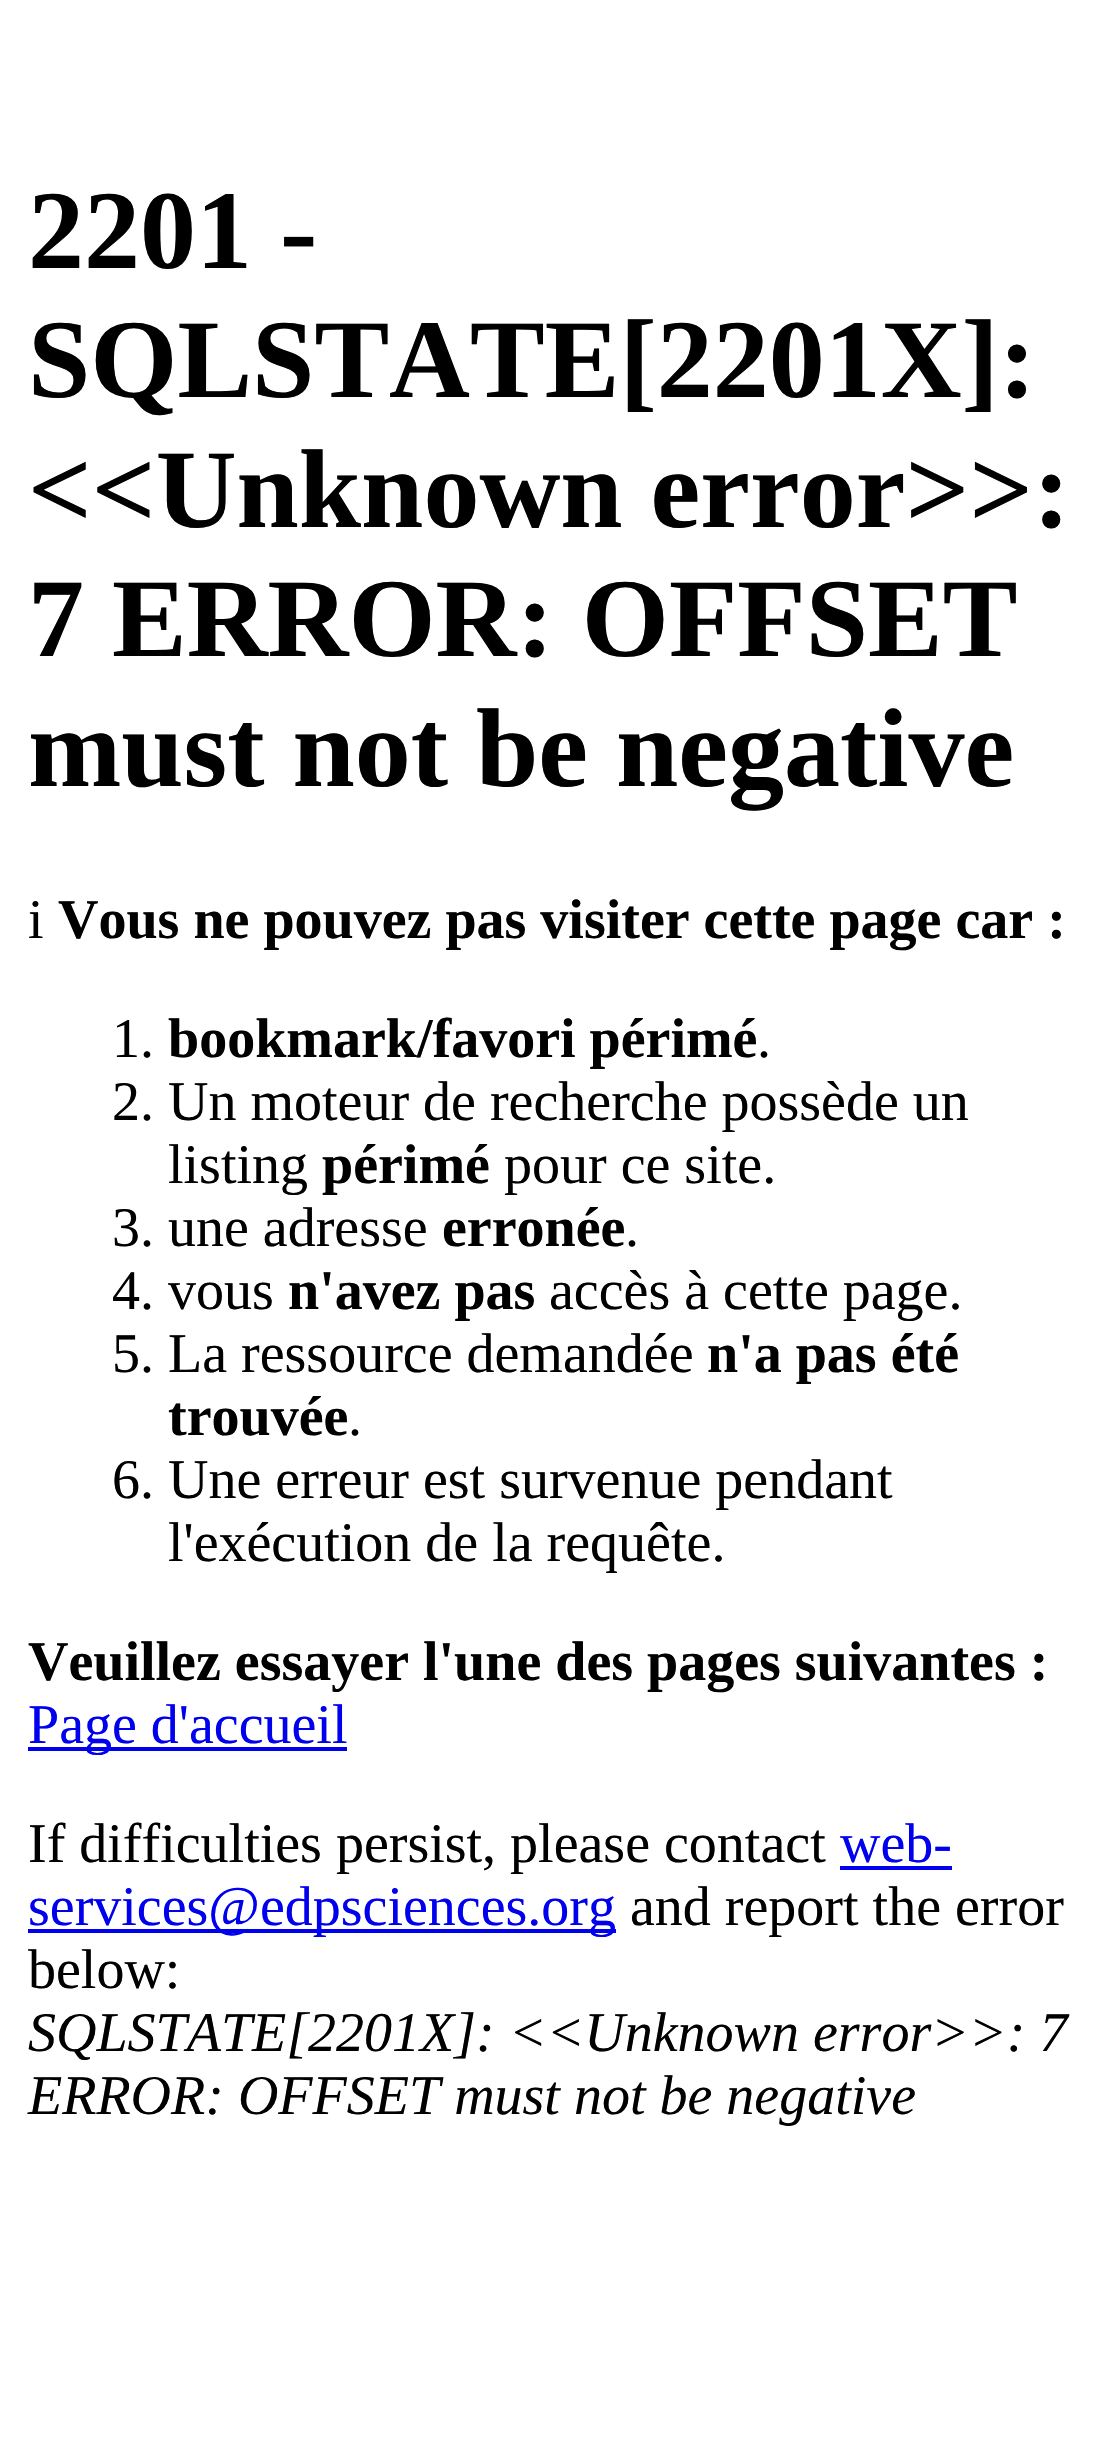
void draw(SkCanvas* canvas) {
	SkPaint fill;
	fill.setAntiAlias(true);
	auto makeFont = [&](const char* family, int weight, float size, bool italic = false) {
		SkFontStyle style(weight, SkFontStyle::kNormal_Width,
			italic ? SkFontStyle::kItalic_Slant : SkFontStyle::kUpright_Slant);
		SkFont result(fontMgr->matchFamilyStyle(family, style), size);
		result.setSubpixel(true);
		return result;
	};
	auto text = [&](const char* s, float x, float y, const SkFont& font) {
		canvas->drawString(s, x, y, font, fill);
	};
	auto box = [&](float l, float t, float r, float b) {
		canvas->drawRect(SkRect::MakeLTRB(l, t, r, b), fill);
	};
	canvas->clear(0xFFFFFFFF);
	fill.setColor(0xFF0000EE);
	box(28, 1747, 347, 1751);
	box(840, 1866, 952, 1870);
	box(28, 1929, 616, 1933);
	auto font1 = makeFont("Liberation Serif", 700, 112);
	fill.setColor(0xFF000000);
	text("2201 -", 28, 268, font1);
	text("SQLSTATE[2201X]:", 28, 397, font1);
	text("<<Unknown error>>:", 28, 527, font1);
	text("7 ERROR: OFFSET", 28, 656, font1);
	text("must not be negative", 28, 786, font1);
	auto font2 = makeFont("Liberation Serif", 400, 56);
	text("i", 28, 938, font2);
	auto font3 = makeFont("Liberation Serif", 700, 56);
	text("Vous ne pouvez pas visiter cette page car :", 58, 938, font3);
	text("1.", 112, 1057, font2);
	text("bookmark/favori périmé", 168, 1057, font3);
	text(".", 757, 1057, font2);
	text("2. Un moteur de recherche possède un", 112, 1120, font2);
	text("listing", 168, 1183, font2);
	text("périmé", 322, 1183, font3);
	text("pour ce site.", 504, 1183, font2);
	text("3. une adresse", 112, 1246, font2);
	text("erronée", 442, 1246, font3);
	text(".", 625, 1246, font2);
	text("4. vous", 112, 1309, font2);
	text("n'avez pas", 288, 1309, font3);
	text("accès à cette page.", 549, 1309, font2);
	text("5. La ressource demandée", 112, 1372, font2);
	text("n'a pas été", 707, 1372, font3);
	text("trouvée", 168, 1435, font3);
	text(".", 348, 1435, font2);
	text("6. Une erreur est survenue pendant", 112, 1498, font2);
	text("l'exécution de la requête.", 168, 1561, font2);
	text("Veuillez essayer l'une des pages suivantes :", 28, 1680, font3);
	fill.setColor(0xFF0000EE);
	text("Page d'accueil", 28, 1743, font2);
	fill.setColor(0xFF000000);
	text("If difficulties persist, please contact", 28, 1862, font2);
	fill.setColor(0xFF0000EE);
	text("web-", 840, 1862, font2);
	text("services@edpsciences.org", 28, 1925, font2);
	fill.setColor(0xFF000000);
	text("and report the error", 630, 1925, font2);
	text("below:", 28, 1988, font2);
	auto font4 = makeFont("Liberation Serif", 400, 56, true);
	text("SQLSTATE[2201X]: <<Unknown error>>: 7", 28, 2051, font4);
	text("ERROR: OFFSET must not be negative", 28, 2114, font4);
}
